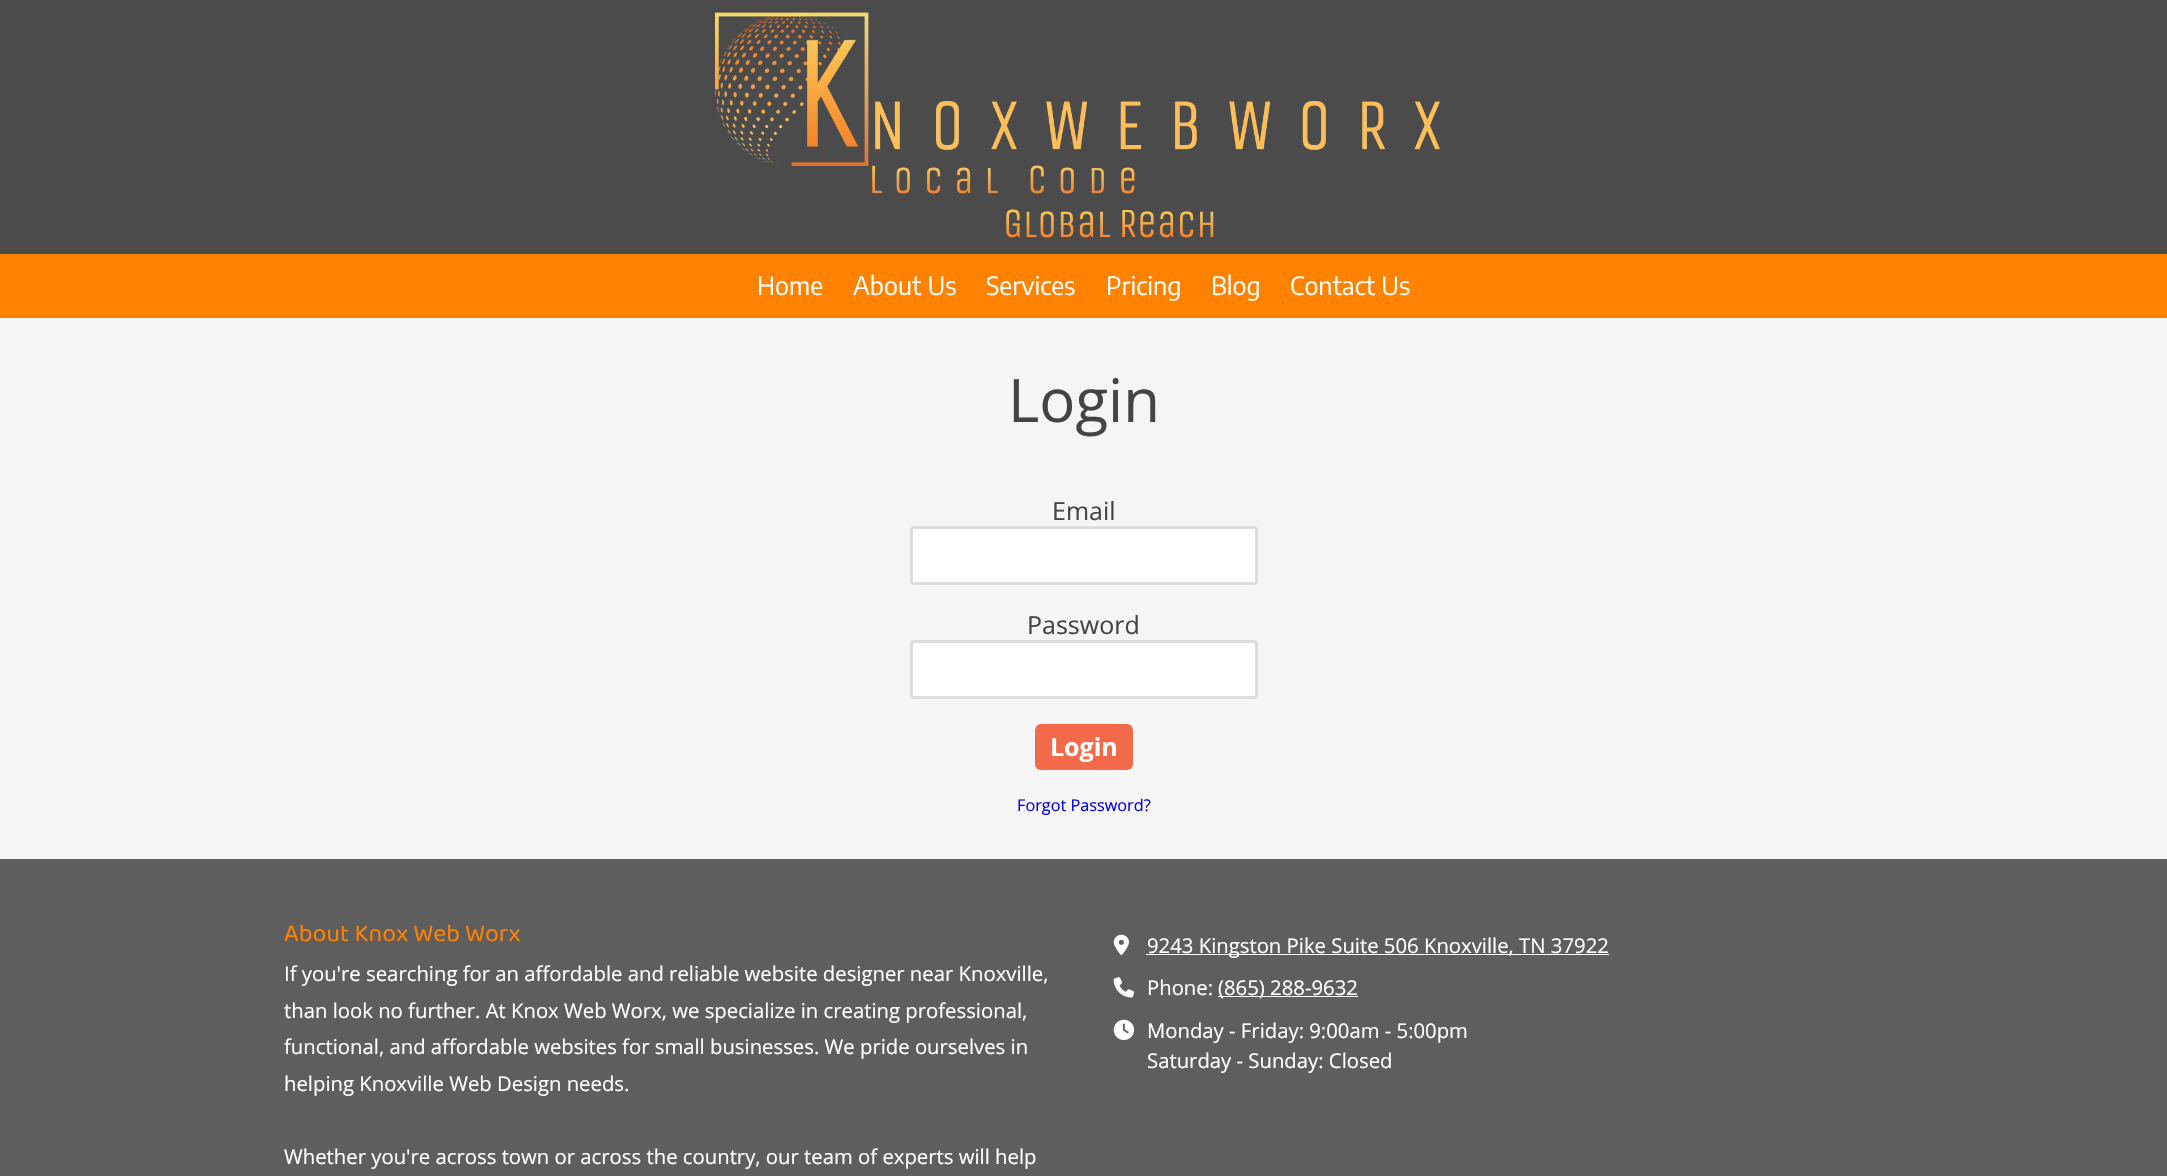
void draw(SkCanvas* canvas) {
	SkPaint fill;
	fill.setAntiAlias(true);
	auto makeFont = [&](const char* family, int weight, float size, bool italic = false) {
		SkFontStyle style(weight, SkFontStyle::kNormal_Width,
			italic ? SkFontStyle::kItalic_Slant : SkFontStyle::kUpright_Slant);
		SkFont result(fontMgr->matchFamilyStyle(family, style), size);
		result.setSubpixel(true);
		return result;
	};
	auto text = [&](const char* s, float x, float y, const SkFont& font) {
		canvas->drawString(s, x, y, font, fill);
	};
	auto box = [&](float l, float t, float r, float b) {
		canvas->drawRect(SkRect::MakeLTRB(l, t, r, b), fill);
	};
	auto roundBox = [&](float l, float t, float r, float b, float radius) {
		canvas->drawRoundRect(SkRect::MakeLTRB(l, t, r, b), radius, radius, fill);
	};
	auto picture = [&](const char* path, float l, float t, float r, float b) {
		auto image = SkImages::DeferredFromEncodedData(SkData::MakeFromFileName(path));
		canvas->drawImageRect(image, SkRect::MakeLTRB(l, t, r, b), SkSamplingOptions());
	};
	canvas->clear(0xFFF5F5F5);
	fill.setColor(0xFF4B4B4B);
	box(0, 0, 2167, 254);
	picture("image0.png", 715, 12, 1440, 238);
	fill.setColor(0xFFFF8200);
	box(0, 254, 2167, 318);
	fill.setColor(0xFFFFFFFF);
	canvas->drawRoundRect(SkRect::MakeLTRB(911.5f, 527.5f, 1256.5f, 583.5f), 2.5f, 2.5f, fill);
	fill.setStyle(SkPaint::kStroke_Style);
	fill.setStrokeWidth(3);
	fill.setColor(0xFFDDDDDD);
	canvas->drawRoundRect(SkRect::MakeLTRB(911.5f, 527.5f, 1256.5f, 583.5f), 2.5f, 2.5f, fill);
	fill.setStyle(SkPaint::kFill_Style);
	fill.setColor(0xFFFFFFFF);
	canvas->drawRoundRect(SkRect::MakeLTRB(911.5f, 641.5f, 1256.5f, 697.5f), 2.5f, 2.5f, fill);
	fill.setStyle(SkPaint::kStroke_Style);
	fill.setColor(0xFFDDDDDD);
	canvas->drawRoundRect(SkRect::MakeLTRB(911.5f, 641.5f, 1256.5f, 697.5f), 2.5f, 2.5f, fill);
	fill.setStyle(SkPaint::kFill_Style);
	fill.setColor(0xFFF36A4A);
	roundBox(1035, 724, 1133, 770, 6);
	fill.setColor(0xFF5E5E5E);
	box(0, 859, 2167, 1176);
	picture("image1.png", 1113, 934, 1129, 955);
	fill.setColor(0xFFFFFFFF);
	box(1146, 954, 1609, 955);
	picture("image2.png", 1113, 977, 1135, 998);
	box(1218, 996, 1358, 997);
	picture("image3.png", 1113, 1019, 1135, 1040);
	auto font1 = makeFont("Encode Sans Condensed", 400, 25);
	text("Home", 757, 295, font1);
	text("About Us", 853, 295, font1);
	text("Services", 986, 295, font1);
	text("Pricing", 1106, 295, font1);
	text("Blog", 1211, 295, font1);
	text("Contact Us", 1290, 295, font1);
	auto font2 = makeFont("Open Sans", 400, 60);
	fill.setColor(0xFF444444);
	text("Login", 1008, 422, font2);
	auto font3 = makeFont("Open Sans", 400, 25);
	text("Email", 1052, 520, font3);
	text("Password", 1027, 634, font3);
	auto font4 = makeFont("Open Sans", 700, 25);
	fill.setColor(0xFFFFFFFF);
	text("Login", 1050, 756, font4);
	auto font5 = makeFont("Open Sans", 400, 16.25f);
	fill.setColor(0xFF0000EE);
	text("Forgot Password?", 1017, 811, font5);
	auto font6 = makeFont("Baloo Da 2", 400, 25);
	fill.setColor(0xFFFF8200);
	text("About Knox Web Worx", 284, 941, font6);
	auto font7 = makeFont("Open Sans", 400, 20.3f);
	fill.setColor(0xFFFFFFFF);
	text("If you're searching for an affordable and reliable website designer near Knoxville,", 284, 981, font7);
	text("than look no further. At Knox Web Worx, we specialize in creating professional,", 284, 1018, font7);
	text("functional, and affordable websites for small businesses. We pride ourselves in", 284, 1054, font7);
	text("helping Knoxville Web Design needs.", 284, 1091, font7);
	text("Whether you're across town or across the country, our team of experts will help", 284, 1164, font7);
	text("9243 Kingston Pike Suite 506 Knoxville, TN 37922", 1147, 953, font7);
	text("Phone:", 1147, 995, font7);
	text("(865) 288-9632", 1218, 995, font7);
	text("Monday - Friday: 9:00am - 5:00pm", 1147, 1038, font7);
	text("Saturday - Sunday: Closed", 1147, 1068, font7);
}
